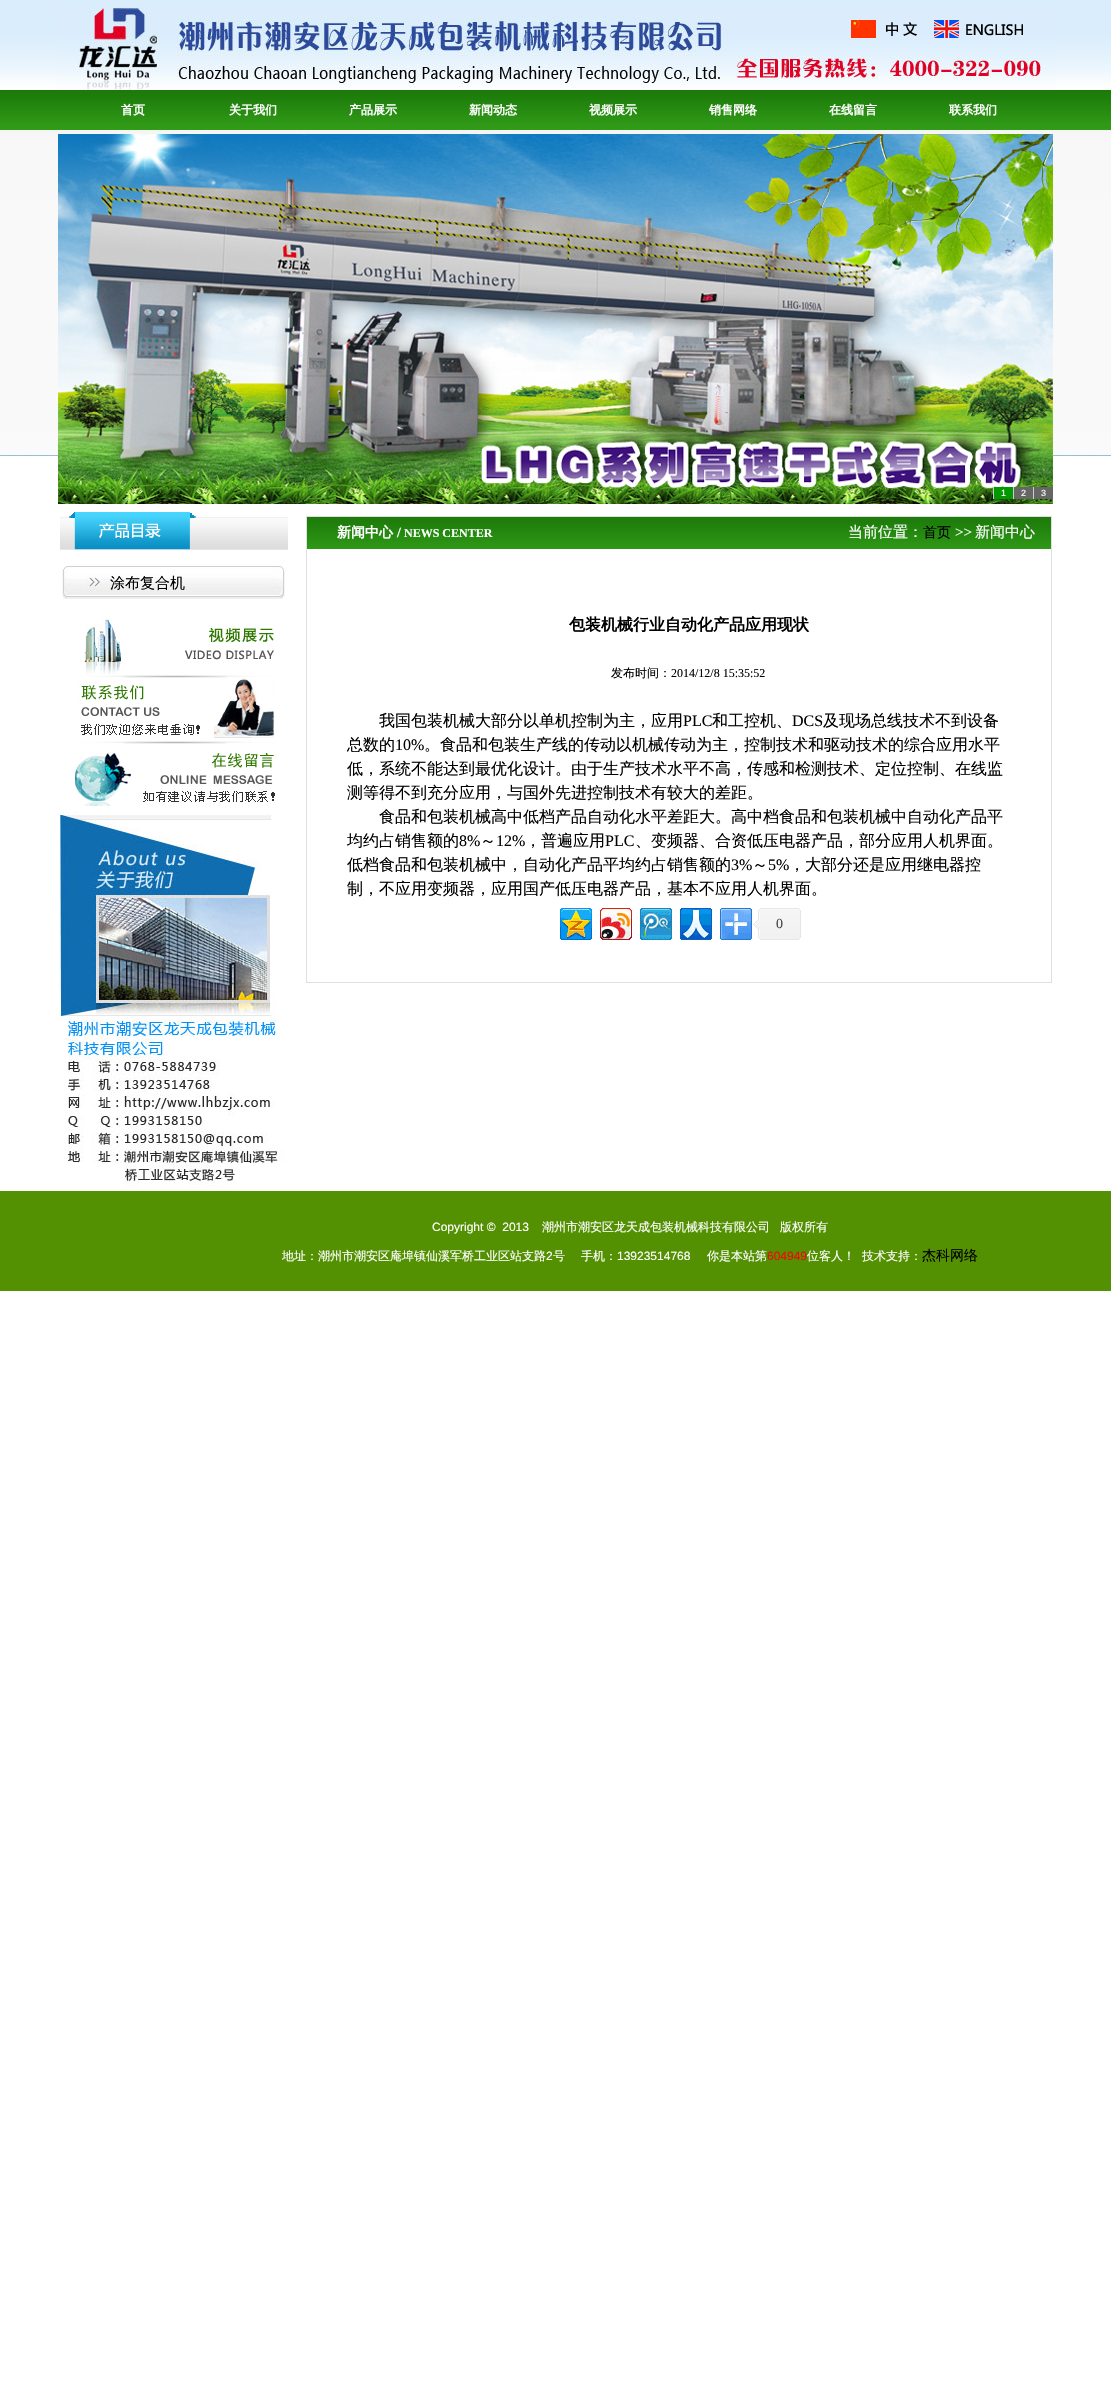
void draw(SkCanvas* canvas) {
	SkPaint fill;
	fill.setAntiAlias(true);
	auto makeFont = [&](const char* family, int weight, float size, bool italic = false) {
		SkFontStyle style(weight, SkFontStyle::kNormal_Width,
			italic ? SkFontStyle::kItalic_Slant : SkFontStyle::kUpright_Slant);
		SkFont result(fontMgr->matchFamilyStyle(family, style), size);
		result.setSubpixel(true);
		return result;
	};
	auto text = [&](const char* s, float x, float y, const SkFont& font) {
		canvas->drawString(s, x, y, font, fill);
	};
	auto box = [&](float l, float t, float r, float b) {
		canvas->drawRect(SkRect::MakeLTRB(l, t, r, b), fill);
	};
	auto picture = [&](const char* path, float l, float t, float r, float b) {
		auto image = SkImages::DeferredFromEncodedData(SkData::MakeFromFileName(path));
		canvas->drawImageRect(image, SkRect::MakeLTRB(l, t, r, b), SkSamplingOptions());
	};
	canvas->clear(0xFFFFFFFF);
	picture("image0.png", 0, 0, 1111, 2400);
	picture("image1.png", 56, 8, 1056, 90);
	picture("image2.png", 851, 20, 917, 38);
	picture("image3.png", 934, 20, 1023, 38);
	picture("image4.png", 58, 134, 1053, 504);
	fill.setColor(0xFF009900);
	box(994, 487, 1013, 499);
	fill.setColor(0xFFCCCCCC);
	box(993, 487, 994, 499);
	fill.setColor(0xFF666666);
	box(1014, 487, 1033, 499);
	fill.setColor(0xFFCCCCCC);
	box(1013, 487, 1014, 499);
	fill.setColor(0xFF666666);
	box(1034, 487, 1053, 499);
	fill.setColor(0xFFCCCCCC);
	box(1033, 487, 1034, 499);
	picture("image5.png", 60, 512, 288, 550);
	picture("image6.png", 62, 566, 286, 599);
	picture("image7.png", 75, 616, 276, 807);
	picture("image8.png", 60, 812, 284, 1188);
	fill.setStyle(SkPaint::kStroke_Style);
	fill.setStrokeWidth(1);
	fill.setColor(0xFFDFDFDF);
	canvas->drawRect(SkRect::MakeLTRB(306.5f, 516.5f, 1051.5f, 982.5f), fill);
	picture("image9.png", 307, 517, 1051, 549);
	picture("image10.png", 560, 908, 592, 940);
	picture("image11.png", 600, 908, 632, 940);
	picture("image12.png", 640, 908, 672, 940);
	picture("image13.png", 680, 908, 712, 940);
	picture("image14.png", 720, 908, 752, 940);
	picture("image15.png", 753, 908, 801, 940);
	fill.setStyle(SkPaint::kFill_Style);
	fill.setColor(0xFF539002);
	box(0, 1191, 1111, 1291);
	auto font1 = makeFont("WenQuanYi Zen Hei", 700, 12);
	fill.setColor(0xFFFFFFFF);
	text("首页", 121, 114, font1);
	text("关于我们", 229, 114, font1);
	text("产品展示", 349, 114, font1);
	text("新闻动态", 469, 114, font1);
	text("视频展示", 589, 114, font1);
	text("销售网络", 709, 114, font1);
	text("在线留言", 829, 114, font1);
	text("联系我们", 949, 114, font1);
	auto font2 = makeFont("Liberation Sans", 400, 9);
	text("1", 1001, 496, font2);
	text("2", 1021, 496, font2);
	text("3", 1041, 496, font2);
	auto font3 = makeFont("WenQuanYi Zen Hei", 500, 15);
	fill.setColor(0xFF000000);
	text("涂布复合机", 110, 588, font3);
	auto font4 = makeFont("WenQuanYi Zen Hei", 700, 14);
	fill.setColor(0xFFFFFFFF);
	text("新闻中心", 337, 537, font4);
	auto font5 = makeFont("Liberation Serif", 700, 14);
	text("/", 397, 537, font5);
	auto font6 = makeFont("Liberation Serif", 700, 12);
	text("NEWS CENTER", 404, 537, font6);
	text("当前位置：", 848, 537, font3);
	auto font7 = makeFont("WenQuanYi Zen Hei", 500, 14);
	fill.setColor(0xFF000000);
	text("首页", 923, 537, font7);
	auto font8 = makeFont("Liberation Serif", 400, 15);
	fill.setColor(0xFFFFFFFF);
	text(">>", 955, 537, font8);
	text("新闻中心", 975, 537, font3);
	auto font9 = makeFont("WenQuanYi Zen Hei", 700, 16);
	fill.setColor(0xFF000000);
	text("包装机械行业自动化产品应用现状", 569, 630, font9);
	auto font10 = makeFont("WenQuanYi Zen Hei", 500, 12);
	text("发布时间：", 611, 677, font10);
	auto font11 = makeFont("Liberation Serif", 400, 12);
	text("2014/12/8 15:35:52", 671, 677, font11);
	auto font12 = makeFont("WenQuanYi Zen Hei", 500, 16);
	text("我国包装机械大部分以单机控制为主，应用", 379, 726, font12);
	auto font13 = makeFont("Liberation Serif", 400, 16);
	text("PLC", 683, 726, font13);
	text("和工控机、", 712, 726, font12);
	text("DCS", 792, 726, font13);
	text("及现场总线技术不到设备", 823, 726, font12);
	text("总数的", 347, 750, font12);
	text("10%", 395, 750, font13);
	text("。食品和包装生产线的传动以机械传动为主，控制技术和驱动技术的综合应用水平", 424, 750, font12);
	text("低，系统不能达到最优化设计。由于生产技术水平不高，传感和检测技术、定位控制、在线监", 347, 774, font12);
	text("测等得不到充分应用，与国外先进控制技术有较大的差距。", 347, 798, font12);
	text("食品和包装机械高中低档产品自动化水平差距大。高中档食品和包装机械中自动化产品平", 379, 822, font12);
	text("均约占销售额的", 347, 846, font12);
	text("8%", 459, 846, font13);
	text("～", 480, 846, font12);
	text("12%", 496, 846, font13);
	text("，普遍应用", 525, 846, font12);
	text("PLC", 605, 846, font13);
	text("、变频器、合资低压电器产品，部分应用人机界面。", 635, 846, font12);
	text("低档食品和包装机械中，自动化产品平均约占销售额的", 347, 870, font12);
	text("3%", 731, 870, font13);
	text("～", 752, 870, font12);
	text("5%", 768, 870, font13);
	text("，大部分还是应用继电器控", 789, 870, font12);
	text("制，不应用变频器，应用国产低压电器产品，基本不应用人机界面。", 347, 894, font12);
	auto font14 = makeFont("Liberation Serif", 400, 14);
	fill.setColor(0xFF454545);
	text("0", 776, 928, font14);
	auto font15 = makeFont("Liberation Sans", 400, 12);
	fill.setColor(0xFFFFFFFF);
	text("Copyright ©  2013", 432, 1231, font15);
	text("潮州市潮安区龙天成包装机械科技有限公司", 542, 1231, font10);
	text("版权所有", 780, 1231, font10);
	text("地址：潮州市潮安区庵埠镇仙溪军桥工业区站支路", 282, 1260, font10);
	text("2", 546, 1260, font15);
	text("号", 553, 1260, font10);
	text("手机：", 581, 1260, font10);
	text("13923514768", 617, 1260, font15);
	text("你是本站第", 707, 1260, font10);
	fill.setColor(0xFFFF0000);
	text("604949", 767, 1260, font15);
	fill.setColor(0xFFFFFFFF);
	text("位客人！", 807, 1260, font10);
	text("技术支持：", 862, 1260, font10);
	fill.setColor(0xFF000000);
	text("杰科网络", 922, 1260, font7);
}
